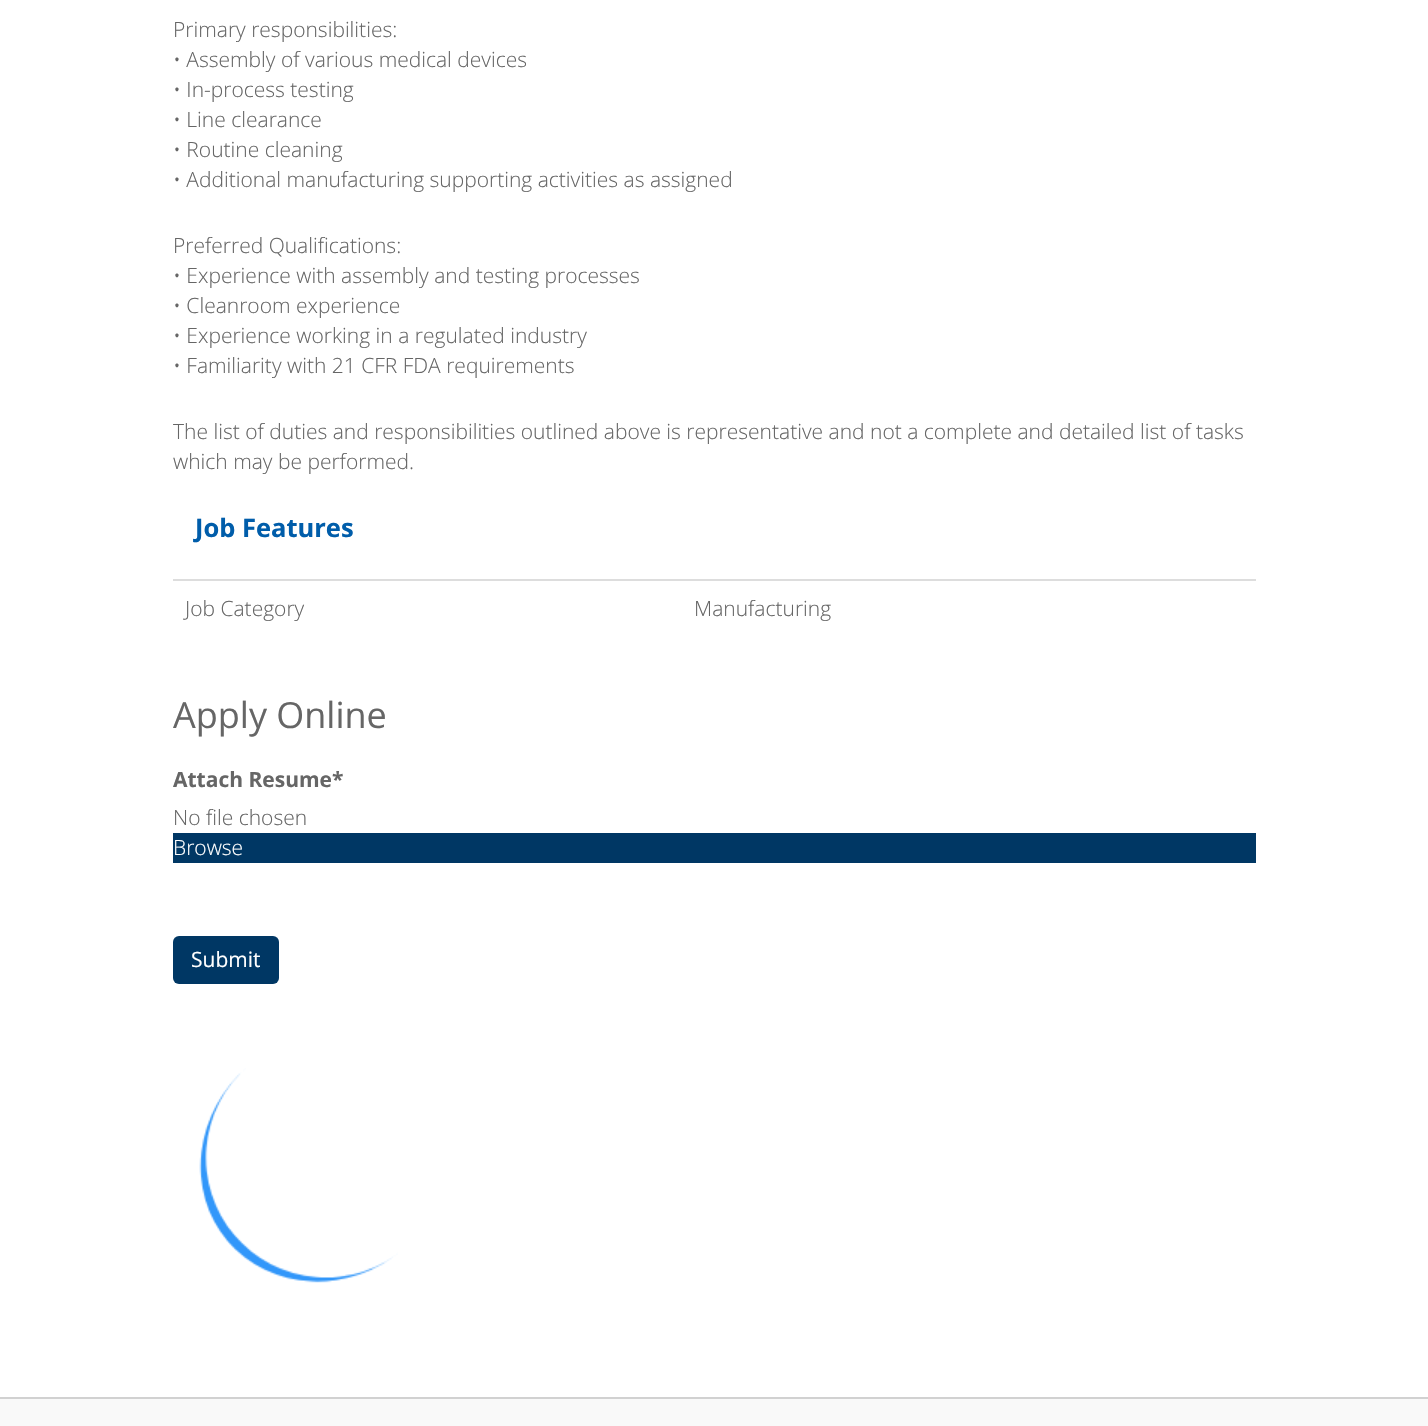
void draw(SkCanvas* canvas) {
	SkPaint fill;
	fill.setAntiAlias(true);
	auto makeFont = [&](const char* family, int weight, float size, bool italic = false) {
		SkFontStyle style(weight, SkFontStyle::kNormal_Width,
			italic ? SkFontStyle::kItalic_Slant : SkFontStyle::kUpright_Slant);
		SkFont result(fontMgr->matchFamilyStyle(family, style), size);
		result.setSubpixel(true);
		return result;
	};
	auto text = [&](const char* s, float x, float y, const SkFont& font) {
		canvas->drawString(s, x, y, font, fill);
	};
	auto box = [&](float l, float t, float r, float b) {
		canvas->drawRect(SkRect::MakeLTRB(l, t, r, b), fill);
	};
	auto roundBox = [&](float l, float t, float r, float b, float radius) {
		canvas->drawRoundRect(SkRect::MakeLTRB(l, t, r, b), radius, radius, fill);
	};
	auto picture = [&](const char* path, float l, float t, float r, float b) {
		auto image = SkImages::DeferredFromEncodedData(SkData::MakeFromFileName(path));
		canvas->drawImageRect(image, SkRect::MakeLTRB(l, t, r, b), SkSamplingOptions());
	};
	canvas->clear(0xFFFFFFFF);
	fill.setColor(0xFFDDDDDD);
	box(173, 579, 1256, 581);
	fill.setColor(0xFF003764);
	box(173, 833, 1256, 863);
	roundBox(173, 936, 279, 984, 6);
	picture("image0.png", 199, 1068, 398, 1283);
	fill.setColor(0xFFF9F9F9);
	box(0, 1399, 1428, 1426);
	fill.setColor(0xFFD1D1D1);
	box(0, 1397, 1428, 1399);
	auto font1 = makeFont("Open Sans", 300, 21);
	fill.setColor(0xFF666666);
	text("Primary responsibilities:", 173, 37, font1);
	text("• Assembly of various medical devices", 173, 67, font1);
	text("• In-process testing", 173, 97, font1);
	text("• Line clearance", 173, 127, font1);
	text("• Routine cleaning", 173, 157, font1);
	text("• Additional manufacturing supporting activities as assigned", 173, 187, font1);
	text("Preferred Qualifications:", 173, 253, font1);
	text("• Experience with assembly and testing processes", 173, 283, font1);
	text("• Cleanroom experience", 173, 313, font1);
	text("• Experience working in a regulated industry", 173, 343, font1);
	text("• Familiarity with 21 CFR FDA requirements", 173, 373, font1);
	text("The list of duties and responsibilities outlined above is representative and not a complete and detailed list of tasks", 173, 439, font1);
	text("which may be performed.", 173, 469, font1);
	auto font2 = makeFont("Open Sans", 700, 25.5f);
	fill.setColor(0xFF005DAA);
	text("Job Features", 195, 537, font2);
	fill.setColor(0xFF666666);
	text("Job Category", 185, 616, font1);
	text("Manufacturing", 694, 616, font1);
	auto font3 = makeFont("Open Sans", 400, 36);
	text("Apply Online", 173, 728, font3);
	auto font4 = makeFont("Open Sans", 700, 21);
	text("Attach Resume*", 173, 787, font4);
	text("No file chosen", 173, 825, font1);
	fill.setColor(0xFFFFFFFF);
	text("Browse", 173, 855, font1);
	auto font5 = makeFont("Open Sans", 400, 21);
	text("Submit", 191, 967, font5);
}
